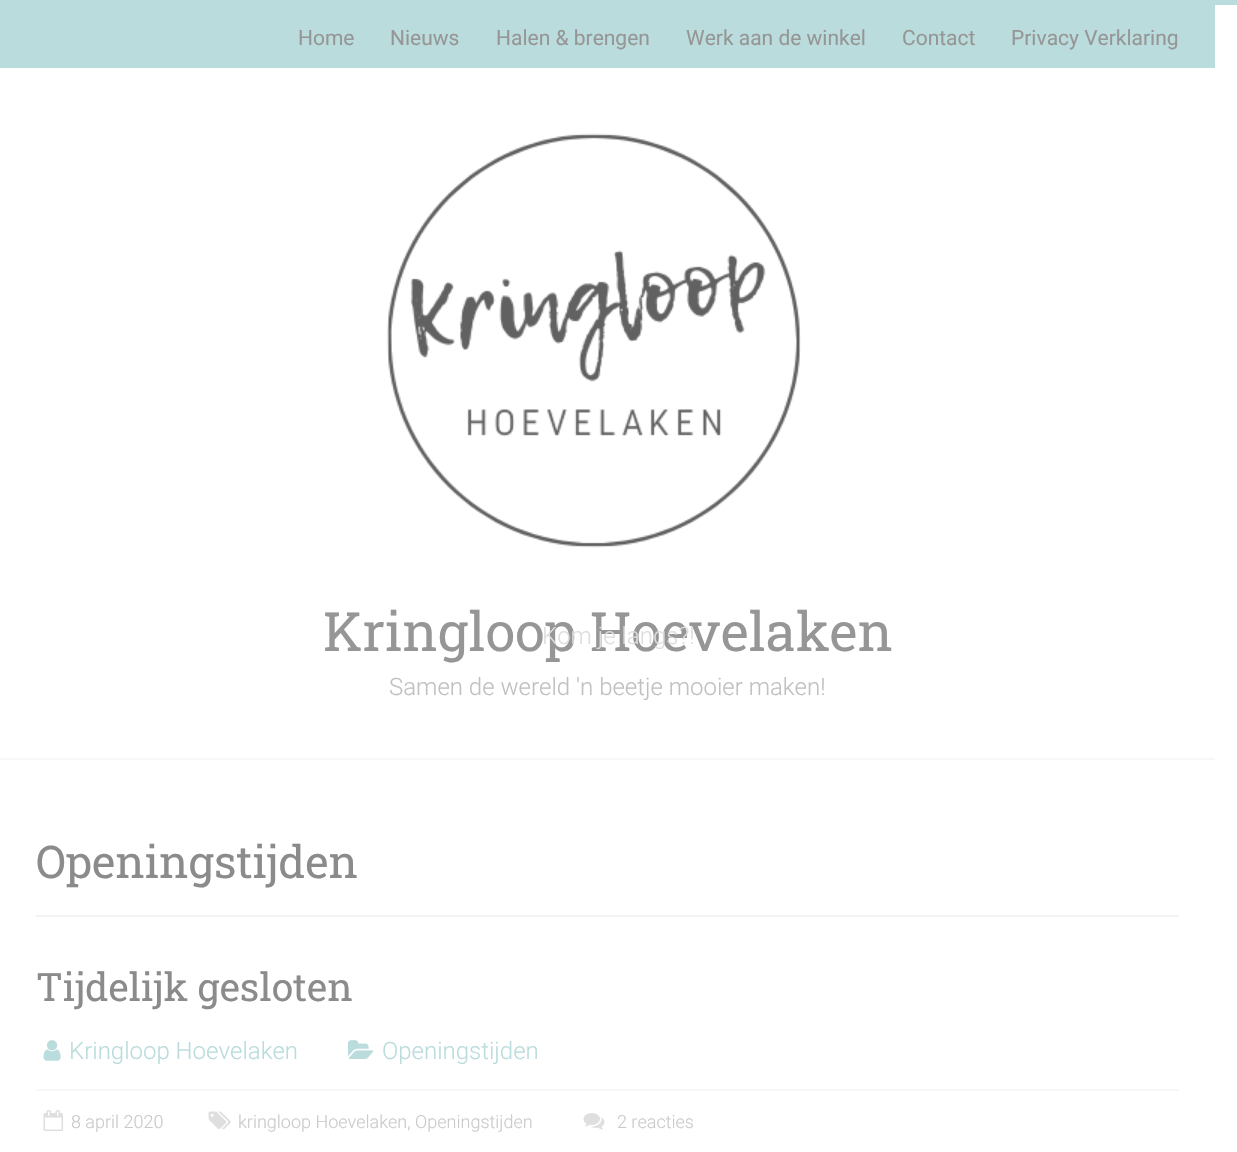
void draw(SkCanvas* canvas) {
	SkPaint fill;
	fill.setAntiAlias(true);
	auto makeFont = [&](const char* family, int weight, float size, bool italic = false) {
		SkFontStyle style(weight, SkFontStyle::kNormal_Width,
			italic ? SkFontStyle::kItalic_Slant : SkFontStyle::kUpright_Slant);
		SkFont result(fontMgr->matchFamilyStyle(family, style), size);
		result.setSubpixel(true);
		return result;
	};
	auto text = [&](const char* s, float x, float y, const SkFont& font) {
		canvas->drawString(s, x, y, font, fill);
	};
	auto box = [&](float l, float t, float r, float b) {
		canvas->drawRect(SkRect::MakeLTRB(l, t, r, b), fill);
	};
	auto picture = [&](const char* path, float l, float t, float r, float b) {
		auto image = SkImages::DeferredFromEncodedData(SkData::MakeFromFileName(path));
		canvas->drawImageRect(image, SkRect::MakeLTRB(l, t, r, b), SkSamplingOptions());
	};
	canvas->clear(0xFFFFFFFF);
	fill.setColor(0xFFBADCDC);
	box(0, 0, 1237, 5);
	box(0, 5, 1215, 68);
	fill.setColor(0xFFF7F7F7);
	box(0, 758, 1215, 760);
	picture("image0.png", 386, 133, 801, 548);
	fill.setColor(0xFFF3F3F3);
	box(36, 915, 1179, 917);
	picture("image1.png", 43, 1040, 61, 1061);
	picture("image2.png", 348, 1040, 374, 1059);
	fill.setColor(0xFFF7F7F7);
	box(36, 1089, 1179, 1091);
	picture("image3.png", 43, 1110, 63, 1131);
	picture("image4.png", 208, 1111, 231, 1130);
	picture("image5.png", 583, 1113, 605, 1130);
	auto font1 = makeFont("Roboto", 400, 21);
	fill.setColor(0xFF969696);
	text("Home", 298, 45, font1);
	text("Nieuws", 390, 45, font1);
	text("Halen & brengen", 496, 45, font1);
	text("Werk aan de winkel", 686, 45, font1);
	text("Contact", 902, 45, font1);
	text("Privacy Verklaring", 1011, 45, font1);
	auto font2 = makeFont("Roboto Slab", 400, 54);
	text("Kringloop Hoevelaken", 323, 651, font2);
	auto font3 = makeFont("Roboto", 300, 24);
	fill.setColor(0xFFC0C0C0);
	text("Samen de wereld 'n beetje mooier maken!", 389, 695, font3);
	auto font4 = makeFont("Roboto Slab", 400, 45);
	fill.setColor(0xFF8B8B8B);
	text("Openingstijden", 36, 878, font4);
	auto font5 = makeFont("Roboto Slab", 400, 39);
	text("Tijdelijk gesloten", 36, 1001, font5);
	fill.setColor(0xFFBADCDC);
	text("Kringloop Hoevelaken", 69, 1059, font3);
	text("Openingstijden", 382, 1059, font3);
	auto font6 = makeFont("Roboto", 300, 18);
	fill.setColor(0xFFCACACA);
	text("8 april 2020", 71, 1128, font6);
	text("kringloop Hoevelaken, Openingstijden", 238, 1128, font6);
	text("2 reacties", 617, 1128, font6);
	fill.setColor(0xFFDDDDDD);
	text("Kom je langs?!", 542, 644, font3);
}
